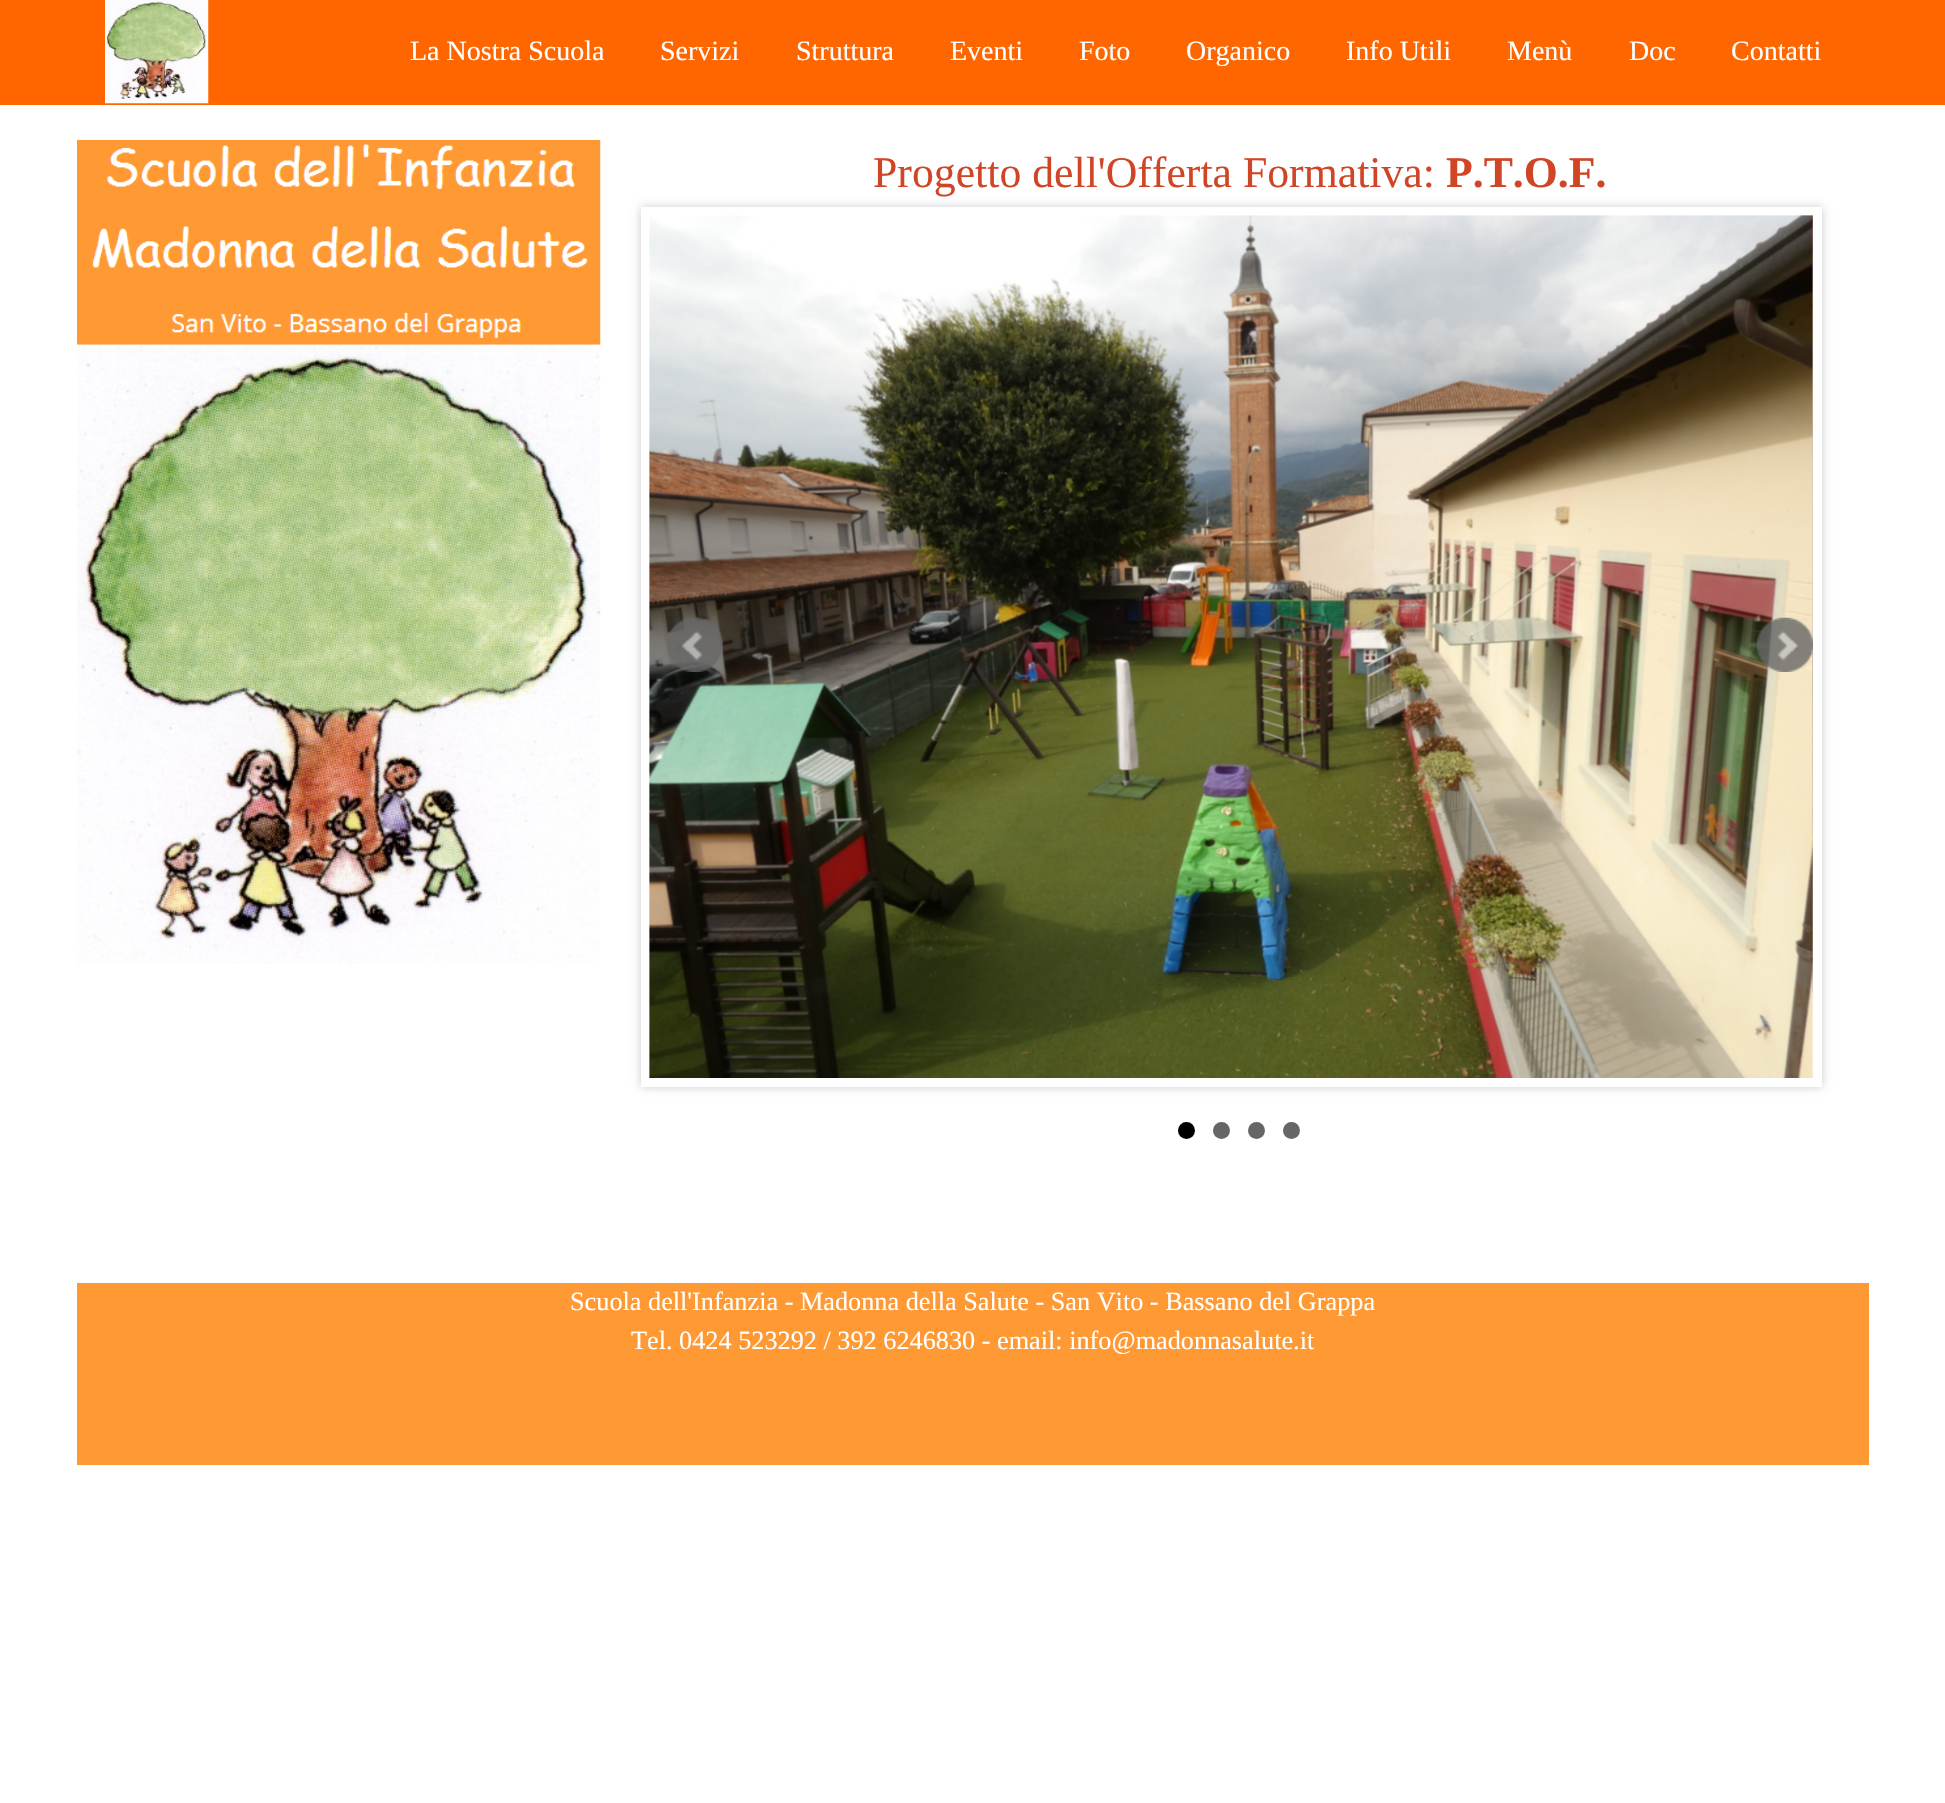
void draw(SkCanvas* canvas) {
	SkPaint fill;
	fill.setAntiAlias(true);
	auto makeFont = [&](const char* family, int weight, float size, bool italic = false) {
		SkFontStyle style(weight, SkFontStyle::kNormal_Width,
			italic ? SkFontStyle::kItalic_Slant : SkFontStyle::kUpright_Slant);
		SkFont result(fontMgr->matchFamilyStyle(family, style), size);
		result.setSubpixel(true);
		return result;
	};
	auto text = [&](const char* s, float x, float y, const SkFont& font) {
		canvas->drawString(s, x, y, font, fill);
	};
	auto box = [&](float l, float t, float r, float b) {
		canvas->drawRect(SkRect::MakeLTRB(l, t, r, b), fill);
	};
	auto picture = [&](const char* path, float l, float t, float r, float b) {
		auto image = SkImages::DeferredFromEncodedData(SkData::MakeFromFileName(path));
		canvas->drawImageRect(image, SkRect::MakeLTRB(l, t, r, b), SkSamplingOptions());
	};
	canvas->clear(0xFFFFFFFF);
	fill.setColor(0xFFFF6600);
	box(0, 0, 1945, 105);
	picture("image0.png", 105, 0, 209, 104);
	picture("image1.png", 77, 140, 601, 345);
	picture("image2.png", 77, 344, 601, 964);
	fill.setColor(0xFFCCCCCC);
	fill.setMaskFilter(SkMaskFilter::MakeBlur(kNormal_SkBlurStyle, 4.5f));
	canvas->drawRect(SkRect::MakeLTRB(641, 207, 1822, 1087), fill);
	fill.setMaskFilter(nullptr);
	fill.setColor(0xFFFFFFFF);
	box(641, 207, 1822, 1087);
	picture("image3.png", 649, 215, 1813, 1078);
	picture("image4.png", 1812, 215, 1813, 993);
	picture("image5.png", 667, 617, 723, 672);
	picture("image6.png", 1757, 617, 1813, 672);
	fill.setColor(0xFF000000);
	canvas->drawCircle(1186.5f, 1130.5f, 8.5f, fill);
	fill.setColor(0xFF666666);
	canvas->drawCircle(1221.5f, 1130.5f, 8.5f, fill);
	canvas->drawCircle(1256.5f, 1130.5f, 8.5f, fill);
	canvas->drawCircle(1291.5f, 1130.5f, 8.5f, fill);
	fill.setColor(0xFFFF9933);
	box(77, 1283, 1869, 1465);
	auto font1 = makeFont("Liberation Serif", 400, 28);
	fill.setColor(0xFFFFFFFF);
	text("La Nostra Scuola", 410, 60, font1);
	text("Servizi", 660, 60, font1);
	text("Struttura", 796, 60, font1);
	text("Eventi", 950, 60, font1);
	text("Foto", 1079, 60, font1);
	text("Organico", 1186, 60, font1);
	text("Info Utili", 1346, 60, font1);
	text("Menù", 1507, 60, font1);
	text("Doc", 1629, 60, font1);
	text("Contatti", 1731, 60, font1);
	auto font2 = makeFont("Liberation Serif", 400, 43.75f);
	fill.setColor(0xFFD04526);
	text("Progetto dell'Offerta Formativa:", 873, 187, font2);
	auto font3 = makeFont("Liberation Serif", 700, 43.75f);
	text("P.T.O.F.", 1446, 187, font3);
	auto font4 = makeFont("Liberation Serif", 400, 26.25f);
	fill.setColor(0xFFFFFFFF);
	text("Scuola dell'Infanzia - Madonna della Salute - San Vito - Bassano del Grappa", 570, 1310, font4);
	text("Tel. 0424 523292 / 392 6246830 - email: info@madonnasalute.it", 631, 1349, font4);
}
